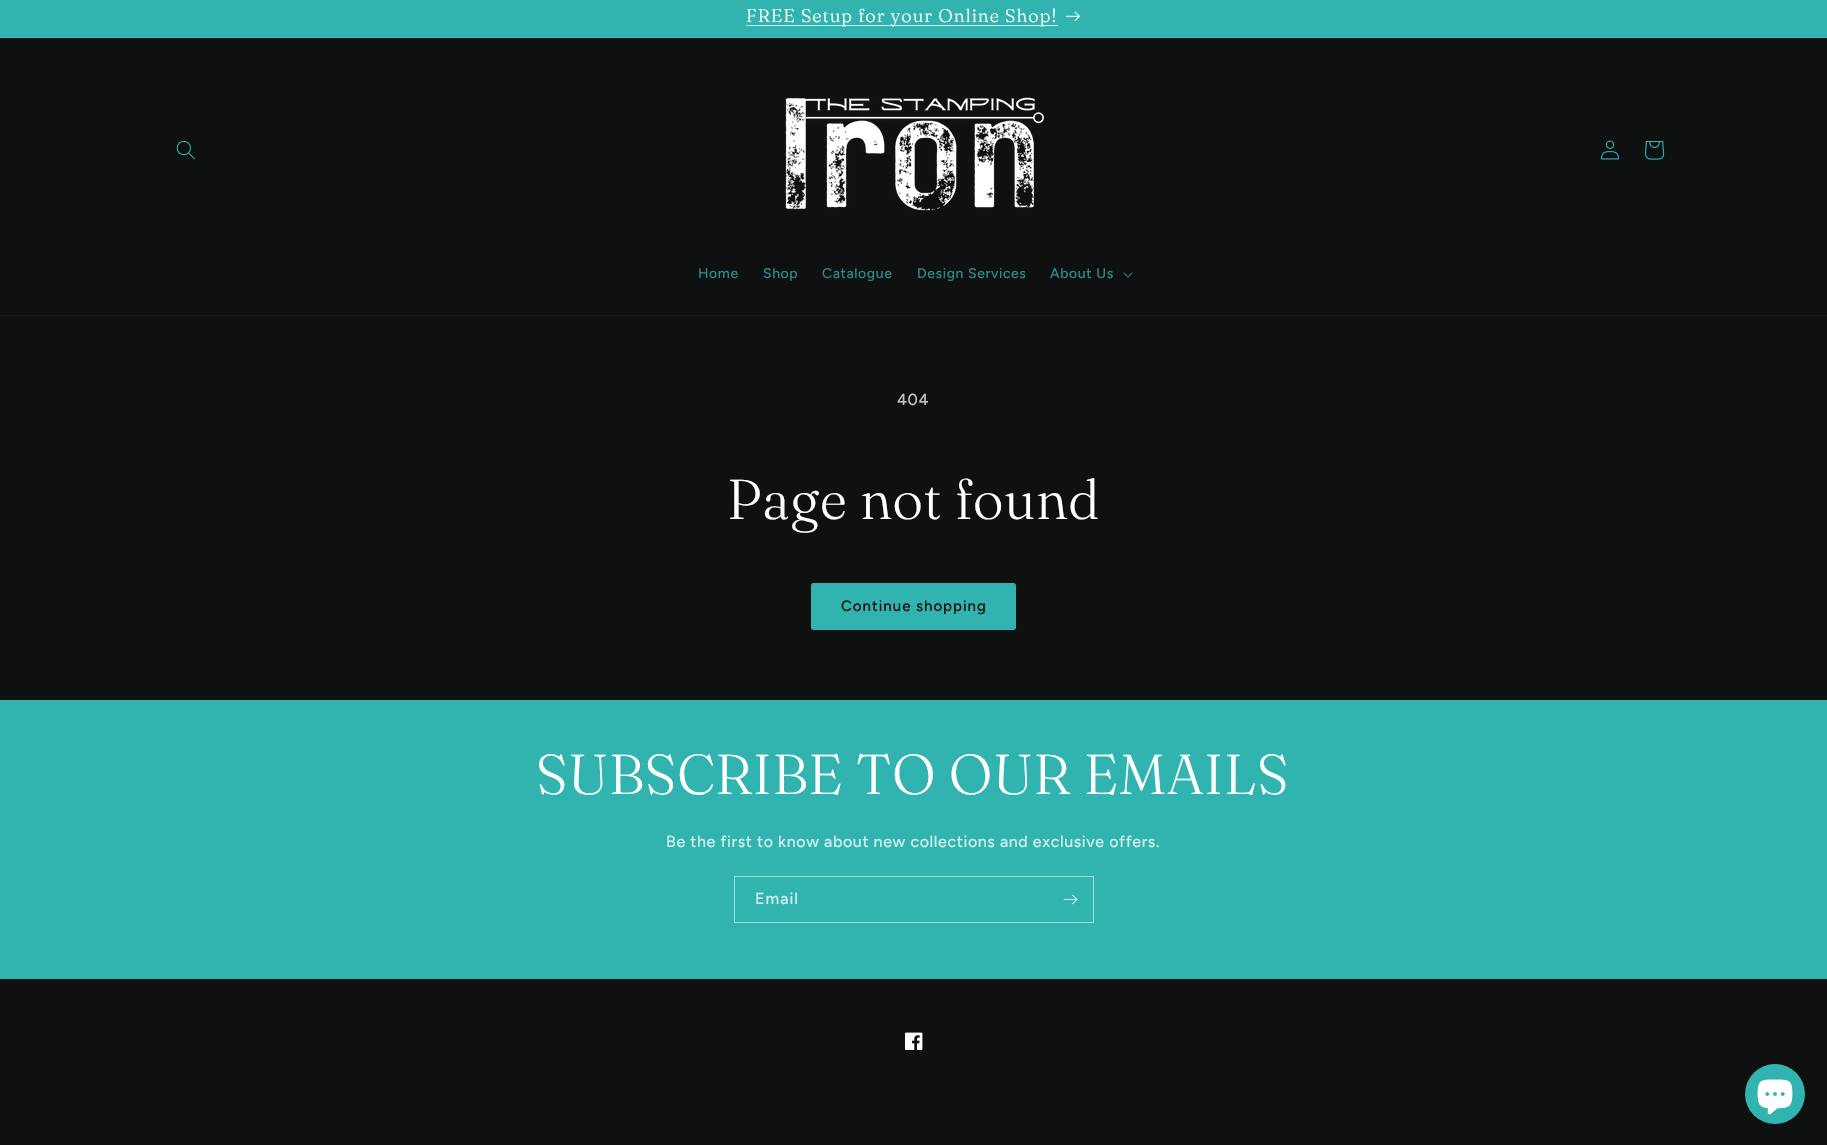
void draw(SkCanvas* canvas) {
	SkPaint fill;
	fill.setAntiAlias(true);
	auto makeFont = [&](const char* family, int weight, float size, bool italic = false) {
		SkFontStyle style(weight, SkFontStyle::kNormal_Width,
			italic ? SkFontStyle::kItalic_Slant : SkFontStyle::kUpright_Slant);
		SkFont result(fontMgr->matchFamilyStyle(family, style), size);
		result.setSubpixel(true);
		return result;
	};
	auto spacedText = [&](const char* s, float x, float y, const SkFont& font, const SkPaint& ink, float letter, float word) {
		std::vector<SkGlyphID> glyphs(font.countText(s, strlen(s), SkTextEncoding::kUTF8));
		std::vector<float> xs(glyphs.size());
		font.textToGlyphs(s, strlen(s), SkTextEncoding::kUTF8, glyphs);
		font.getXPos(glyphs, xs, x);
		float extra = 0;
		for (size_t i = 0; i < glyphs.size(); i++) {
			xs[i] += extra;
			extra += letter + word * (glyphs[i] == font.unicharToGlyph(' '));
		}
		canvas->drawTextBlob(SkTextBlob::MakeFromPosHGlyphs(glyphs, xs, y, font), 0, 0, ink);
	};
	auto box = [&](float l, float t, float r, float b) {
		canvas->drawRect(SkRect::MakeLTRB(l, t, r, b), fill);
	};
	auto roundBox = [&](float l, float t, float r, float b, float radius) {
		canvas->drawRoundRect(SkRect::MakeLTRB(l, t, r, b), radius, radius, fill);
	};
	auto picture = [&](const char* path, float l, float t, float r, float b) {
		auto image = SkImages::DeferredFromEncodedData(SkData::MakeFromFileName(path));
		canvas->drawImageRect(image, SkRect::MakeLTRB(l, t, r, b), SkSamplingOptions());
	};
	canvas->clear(0xFF0F1010);
	fill.setColor(0xFF31B4B0);
	box(0, 0, 1827, 37);
	fill.setColor(0xFF41BAB6);
	box(0, 37, 1827, 38);
	fill.setColor(0xFFCCECEB);
	box(746, 25, 1058, 26);
	picture("image0.png", 1066, 11, 1080, 22);
	fill.setColor(0xFF121D1D);
	box(0, 315, 1827, 316);
	picture("image1.png", 176, 140, 195, 160);
	picture("image2.png", 785, 97, 1044, 211);
	picture("image3.png", 1601, 140, 1619, 160);
	picture("image4.png", 1645, 141, 1665, 160);
	picture("image5.png", 1123, 272, 1133, 278);
	fill.setColor(0xFF31B4B0);
	roundBox(811, 583, 1016, 630, 3);
	fill.setStyle(SkPaint::kStroke_Style);
	fill.setStrokeWidth(1);
	canvas->drawRoundRect(SkRect::MakeLTRB(811.5f, 583.5f, 1015.5f, 629.5f), 2.5f, 2.5f, fill);
	fill.setStyle(SkPaint::kFill_Style);
	box(0, 700, 1827, 979);
	fill.setStyle(SkPaint::kStroke_Style);
	fill.setColor(0xFFA2DDDB);
	canvas->drawRect(SkRect::MakeLTRB(734.5f, 876.5f, 1093.5f, 922.5f), fill);
	picture("image6.png", 1063, 894, 1078, 905);
	picture("image7.png", 905, 1032, 923, 1050);
	fill.setStyle(SkPaint::kFill_Style);
	fill.setColor(0xFF31B4B0);
	canvas->drawCircle(1775, 1094, 30, fill);
	picture("image8.png", 1757, 1079, 1793, 1115);
	auto font1 = makeFont("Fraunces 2", 300, 18.25f);
	fill.setColor(0xFFFFFFFF);
	spacedText("FREE Setup for your Online Shop!", 746, 22, font1, fill, 1, 0);
	auto font2 = makeFont("Figtree", 500, 14);
	fill.setColor(0xFF298B88);
	spacedText("Home", 698, 278, font2, fill, 0.6f, 0);
	spacedText("Shop", 763, 278, font2, fill, 0.6f, 0);
	spacedText("Catalogue", 822, 278, font2, fill, 0.6f, 0);
	spacedText("Design Services", 917, 278, font2, fill, 0.6f, 0);
	spacedText("About Us", 1050, 278, font2, fill, 0.6f, 0);
	auto font3 = makeFont("Figtree", 500, 16);
	fill.setColor(0xFFC3C3C3);
	spacedText("404", 897, 405, font3, fill, 0.6f, 0);
	auto font4 = makeFont("Fraunces", 300, 56);
	fill.setColor(0xFFFFFFFF);
	spacedText("Page not found", 727, 519, font4, fill, 0.8f, 0);
	auto font5 = makeFont("Figtree", 500, 15);
	fill.setColor(0xFF0F1010);
	spacedText("Continue shopping", 841, 611, font5, fill, 1, 0);
	fill.setColor(0xFFFFFFFF);
	spacedText("SUBSCRIBE TO OUR EMAILS", 536, 794, font4, fill, 0.8f, 0);
	fill.setColor(0xFFCCECEB);
	spacedText("Be the first to know about new collections and exclusive offers.", 666, 847, font3, fill, 0.6f, 0);
	spacedText("Email", 755, 904, font3, fill, 1, 0);
}
